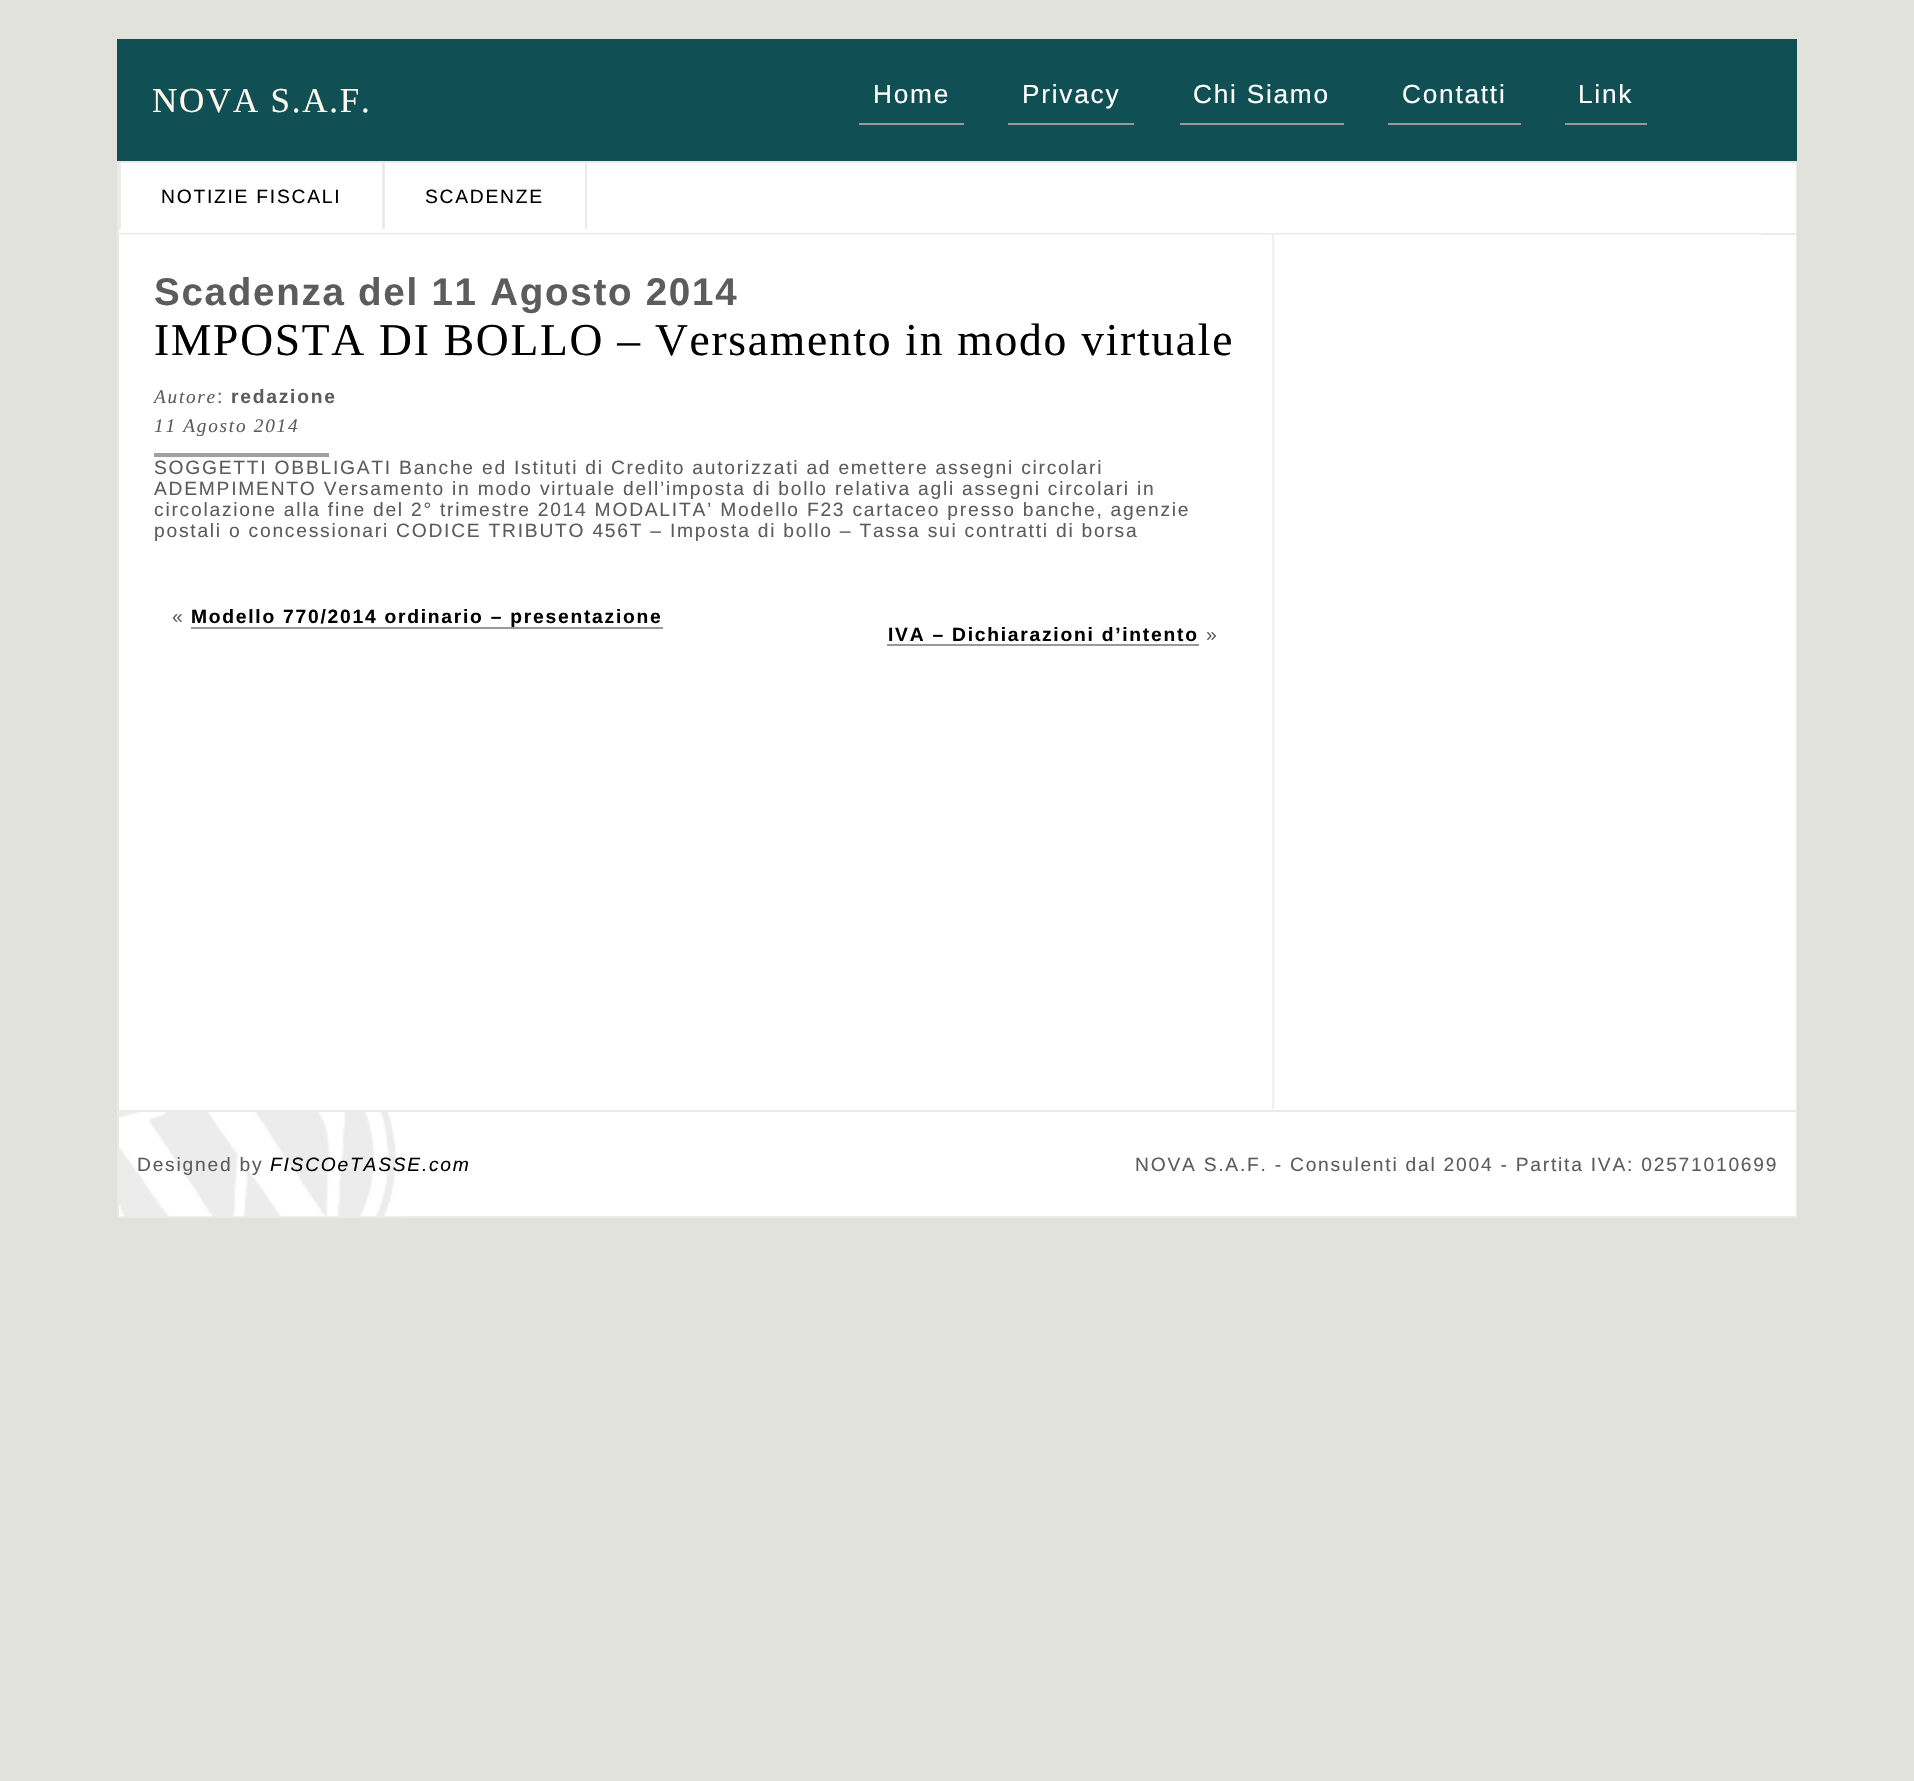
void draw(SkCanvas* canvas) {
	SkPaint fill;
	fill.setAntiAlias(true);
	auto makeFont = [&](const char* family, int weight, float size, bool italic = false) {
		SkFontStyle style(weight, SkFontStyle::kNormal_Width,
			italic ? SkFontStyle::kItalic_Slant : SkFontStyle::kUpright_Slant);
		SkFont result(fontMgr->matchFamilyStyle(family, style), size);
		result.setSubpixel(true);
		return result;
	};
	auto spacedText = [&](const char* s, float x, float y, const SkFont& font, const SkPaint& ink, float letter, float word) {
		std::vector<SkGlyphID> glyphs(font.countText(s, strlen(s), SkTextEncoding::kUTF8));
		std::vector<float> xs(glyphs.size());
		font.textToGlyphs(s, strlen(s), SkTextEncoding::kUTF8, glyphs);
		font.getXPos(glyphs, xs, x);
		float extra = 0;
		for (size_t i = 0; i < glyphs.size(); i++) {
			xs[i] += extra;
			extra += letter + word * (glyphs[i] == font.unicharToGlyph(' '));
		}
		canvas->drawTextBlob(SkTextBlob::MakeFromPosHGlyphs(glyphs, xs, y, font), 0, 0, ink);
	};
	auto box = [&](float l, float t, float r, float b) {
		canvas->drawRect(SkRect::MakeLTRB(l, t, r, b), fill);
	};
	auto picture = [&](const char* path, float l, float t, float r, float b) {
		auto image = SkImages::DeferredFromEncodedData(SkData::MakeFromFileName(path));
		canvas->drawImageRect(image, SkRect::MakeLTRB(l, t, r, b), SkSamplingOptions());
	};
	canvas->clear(0xFFE1E2DC);
	fill.setColor(0xFF104F53);
	box(117, 39, 1797, 161);
	fill.setColor(0xFF999999);
	box(859, 123, 964, 125);
	box(1008, 123, 1134, 125);
	box(1180, 123, 1344, 125);
	box(1388, 123, 1521, 125);
	box(1565, 123, 1647, 125);
	fill.setStyle(SkPaint::kStroke_Style);
	fill.setStrokeWidth(2);
	fill.setColor(0xFFEAEAEA);
	canvas->drawRect(SkRect::MakeLTRB(118, 162, 1796, 1217), fill);
	fill.setStyle(SkPaint::kFill_Style);
	fill.setColor(0xFFFFFFFF);
	box(119, 163, 1796, 233);
	fill.setColor(0xFFEAEAEA);
	box(119, 233, 1796, 235);
	box(382, 163, 385, 229);
	box(119, 163, 121, 229);
	box(585, 163, 587, 229);
	fill.setColor(0xFFFFFFFF);
	box(119, 235, 1796, 1110);
	picture("image0.png", 119, 234, 1762, 1110);
	fill.setColor(0xFFA0A0A0);
	box(154, 453, 329, 457);
	fill.setColor(0xFF999999);
	box(191, 627, 663, 629);
	box(887, 644, 1199, 646);
	fill.setColor(0xFFFFFFFF);
	box(402, 1112, 1796, 1216);
	picture("image1.png", 119, 1112, 402, 1217);
	fill.setColor(0xFFEAEAEA);
	box(119, 1110, 1796, 1112);
	auto font1 = makeFont("Liberation Serif", 400, 35);
	fill.setColor(0xFFFFF7EB);
	spacedText("NOVA S.A.F.", 152, 112, font1, fill, 1.75f, 0);
	auto font2 = makeFont("Liberation Sans", 400, 26.25f);
	fill.setColor(0xFFFFFFFF);
	spacedText("Home", 873, 103, font2, fill, 1.75f, 0);
	spacedText("Privacy", 1022, 103, font2, fill, 1.75f, 0);
	spacedText("Chi Siamo", 1193, 103, font2, fill, 1.75f, 0);
	spacedText("Contatti", 1402, 103, font2, fill, 1.75f, 0);
	spacedText("Link", 1578, 103, font2, fill, 1.75f, 0);
	auto font3 = makeFont("Liberation Sans", 400, 19.25f);
	fill.setColor(0xFF000000);
	spacedText("NOTIZIE FISCALI", 161, 203, font3, fill, 1.75f, 0);
	spacedText("SCADENZE", 425, 203, font3, fill, 1.75f, 0);
	auto font4 = makeFont("Liberation Sans", 700, 38.5f);
	fill.setColor(0xFF5C5C5C);
	spacedText("Scadenza del 11 Agosto 2014", 154, 305, font4, fill, 1.75f, 0);
	auto font5 = makeFont("Liberation Serif", 400, 45.5f);
	fill.setColor(0xFF000000);
	spacedText("IMPOSTA DI BOLLO – Versamento in modo virtuale", 154, 355, font5, fill, 1.75f, 0);
	auto font6 = makeFont("Liberation Serif", 400, 19.25f, true);
	fill.setColor(0xFF5C5C5C);
	spacedText("Autore", 154, 403, font6, fill, 1.75f, 0);
	spacedText(":", 217, 403, font3, fill, 1.75f, 0);
	auto font7 = makeFont("Liberation Sans", 700, 19.25f);
	spacedText("redazione", 231, 403, font7, fill, 1.75f, 0);
	spacedText("11 Agosto 2014", 154, 432, font6, fill, 1.75f, 0);
	spacedText("SOGGETTI OBBLIGATI Banche ed Istituti di Credito autorizzati ad emettere assegni circolari", 154, 474, font3, fill, 1.75f, 0);
	spacedText("ADEMPIMENTO Versamento in modo virtuale dell’imposta di bollo relativa agli assegni circolari in", 154, 495, font3, fill, 1.75f, 0);
	spacedText("circolazione alla fine del 2° trimestre 2014 MODALITA’ Modello F23 cartaceo presso banche, agenzie", 154, 516, font3, fill, 1.75f, 0);
	spacedText("postali o concessionari CODICE TRIBUTO 456T – Imposta di bollo – Tassa sui contratti di borsa", 154, 537, font3, fill, 1.75f, 0);
	spacedText("«", 172, 623, font3, fill, 1.75f, 0);
	fill.setColor(0xFF000000);
	spacedText("Modello 770/2014 ordinario – presentazione", 191, 623, font7, fill, 1.75f, 0);
	spacedText("IVA – Dichiarazioni d’intento", 888, 641, font7, fill, 1.75f, 0);
	fill.setColor(0xFF5C5C5C);
	spacedText("»", 1206, 641, font3, fill, 1.75f, 0);
	spacedText("Designed by", 137, 1171, font3, fill, 1.75f, 0);
	auto font8 = makeFont("Liberation Sans", 400, 19.25f, true);
	fill.setColor(0xFF000000);
	spacedText("FISCOeTASSE.com", 270, 1171, font8, fill, 1.75f, 0);
	fill.setColor(0xFF5C5C5C);
	spacedText("NOVA S.A.F. - Consulenti dal 2004 - Partita IVA: 02571010699", 1135, 1171, font3, fill, 1.75f, 0);
}
